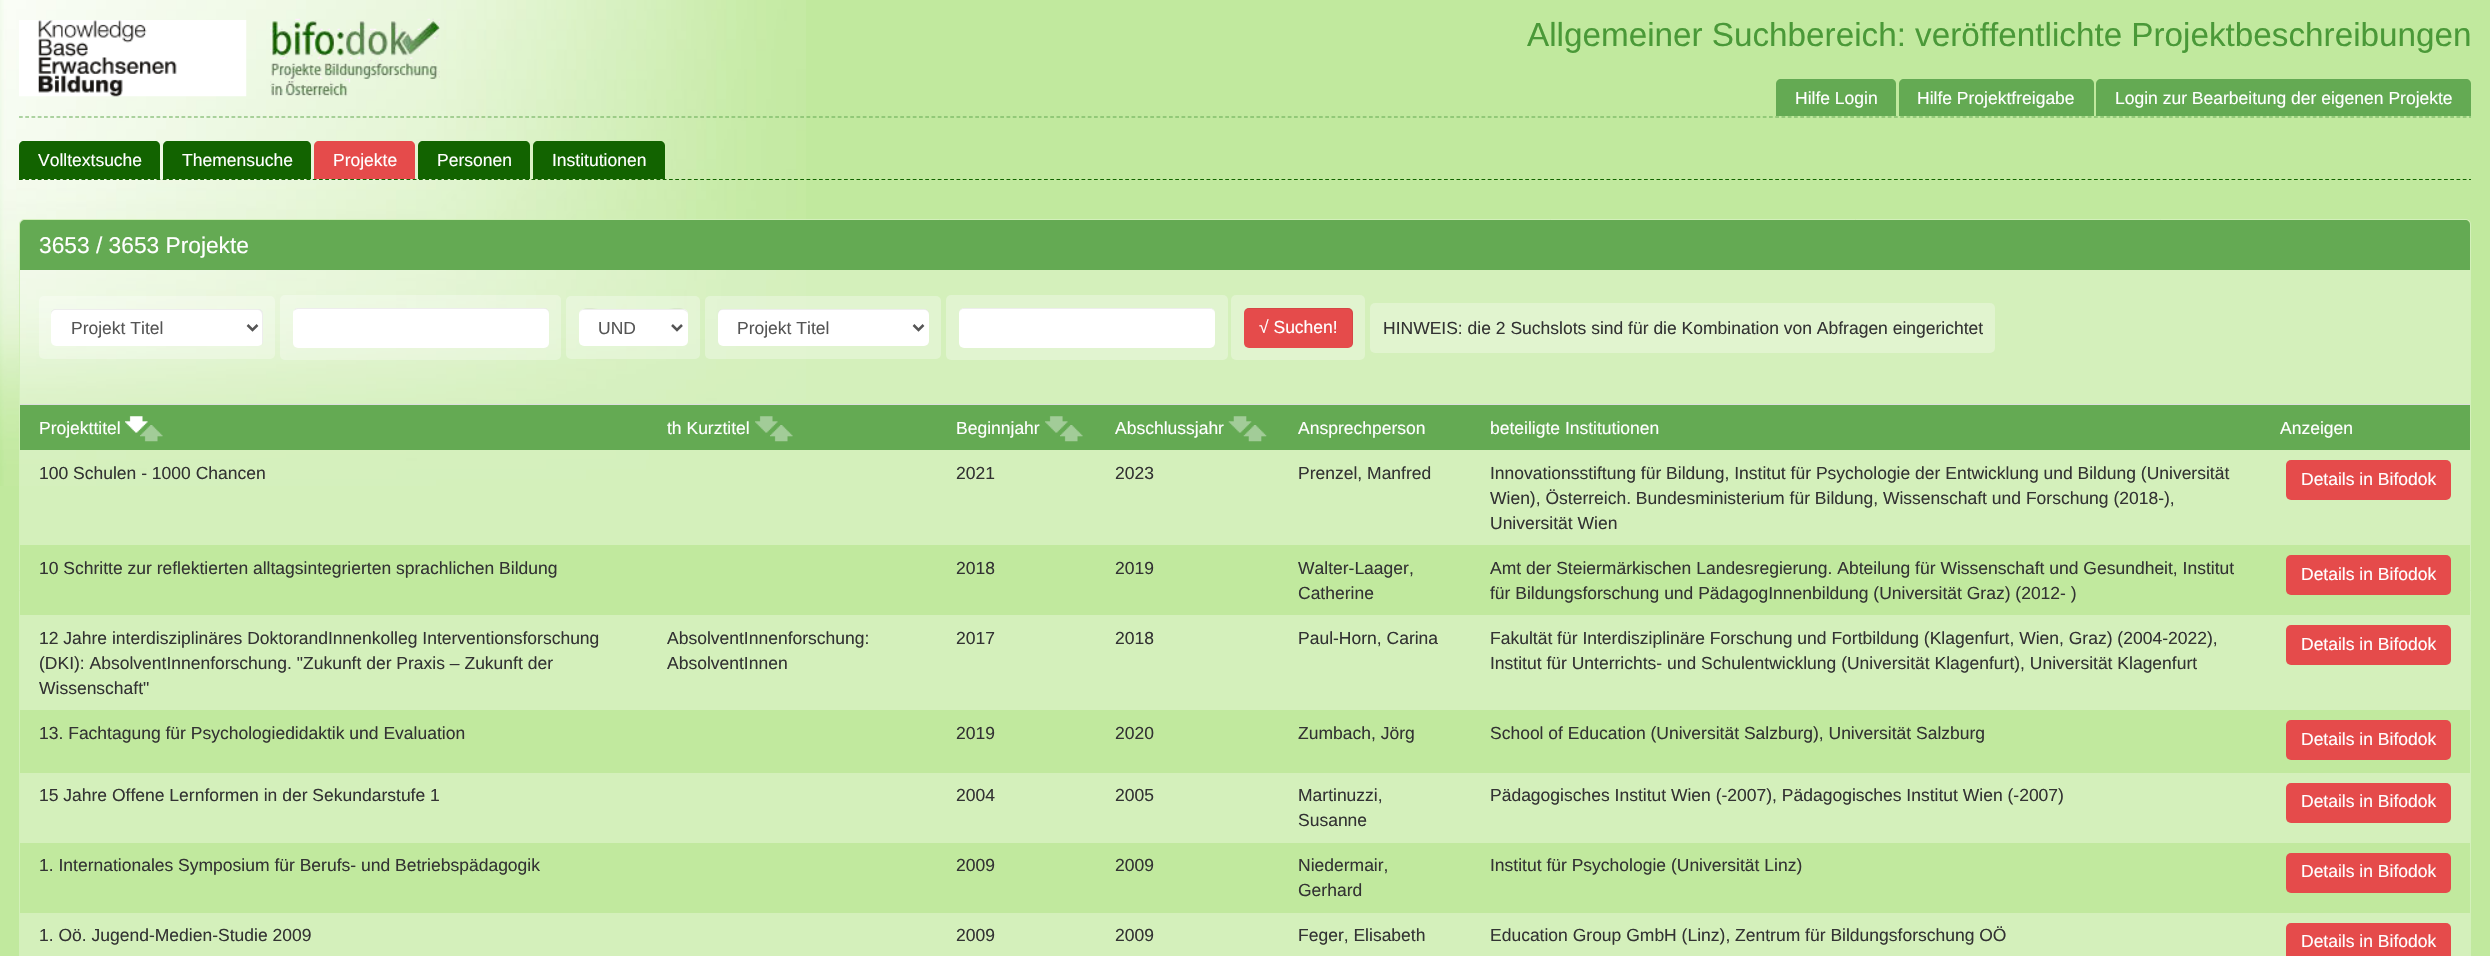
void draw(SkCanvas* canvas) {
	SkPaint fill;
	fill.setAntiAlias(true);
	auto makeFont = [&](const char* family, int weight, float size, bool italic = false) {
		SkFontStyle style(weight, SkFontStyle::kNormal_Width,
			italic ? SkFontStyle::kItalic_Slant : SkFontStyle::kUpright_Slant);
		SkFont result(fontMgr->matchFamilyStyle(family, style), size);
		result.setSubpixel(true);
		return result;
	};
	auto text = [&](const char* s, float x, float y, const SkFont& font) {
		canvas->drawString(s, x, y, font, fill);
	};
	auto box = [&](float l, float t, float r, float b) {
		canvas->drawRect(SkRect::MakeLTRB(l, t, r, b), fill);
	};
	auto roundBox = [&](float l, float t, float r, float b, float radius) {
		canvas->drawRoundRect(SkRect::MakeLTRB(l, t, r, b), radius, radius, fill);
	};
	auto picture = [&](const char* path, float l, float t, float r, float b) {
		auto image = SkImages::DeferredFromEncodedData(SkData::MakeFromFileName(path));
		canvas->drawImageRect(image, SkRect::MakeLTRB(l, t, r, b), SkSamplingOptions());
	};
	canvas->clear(0xFFC1E99E);
	picture("image0.png", 0, 0, 806, 486);
	fill.setStyle(SkPaint::kStroke_Style);
	fill.setStrokeWidth(1.2f);
	fill.setColor(0xFF64AA53);
	fill.setPathEffect(SkDashPathEffect::Make({{3.75f, 2.5f}}, 0));
	canvas->drawPath(SkPathBuilder().moveTo(19, 117).lineTo(2471, 117).detach(), fill);
	fill.setPathEffect(nullptr);
	picture("image1.png", 19, 20, 247, 97);
	picture("image2.png", 270, 18, 440, 98);
	fill.setColor(0xFF126300);
	fill.setPathEffect(SkDashPathEffect::Make({{3.75f, 2.5f}}, 0));
	canvas->drawPath(SkPathBuilder().moveTo(19, 179.5f).lineTo(2471, 179.5f).detach(), fill);
	fill.setPathEffect(nullptr);
	fill.setStyle(SkPaint::kFill_Style);
	fill.setColor(0xFF64AA53);
	canvas->drawPath(SkPathBuilder().moveTo(1781, 79).lineTo(1891, 79).cubicTo(1894, 79, 1896, 81, 1896, 84).lineTo(1896, 116).lineTo(1776, 116).lineTo(1776, 84).cubicTo(1776, 81, 1778, 79, 1781, 79).close().detach(), fill);
	canvas->drawPath(SkPathBuilder().moveTo(1904, 79).lineTo(2089, 79).cubicTo(2092, 79, 2094, 81, 2094, 84).lineTo(2094, 116).lineTo(1899, 116).lineTo(1899, 84).cubicTo(1899, 81, 1901, 79, 1904, 79).close().detach(), fill);
	canvas->drawPath(SkPathBuilder().moveTo(2101, 79).lineTo(2466, 79).cubicTo(2469, 79, 2471, 81, 2471, 84).lineTo(2471, 116).lineTo(2096, 116).lineTo(2096, 84).cubicTo(2096, 81, 2098, 79, 2101, 79).close().detach(), fill);
	fill.setColor(0xFF126300);
	canvas->drawPath(SkPathBuilder().moveTo(24, 141).lineTo(155, 141).cubicTo(158, 141, 160, 143, 160, 146).lineTo(160, 179).lineTo(19, 179).lineTo(19, 146).cubicTo(19, 143, 21, 141, 24, 141).close().detach(), fill);
	canvas->drawPath(SkPathBuilder().moveTo(168, 141).lineTo(306, 141).cubicTo(309, 141, 311, 143, 311, 146).lineTo(311, 179).lineTo(163, 179).lineTo(163, 146).cubicTo(163, 143, 165, 141, 168, 141).close().detach(), fill);
	fill.setColor(0xFFE54B4B);
	canvas->drawPath(SkPathBuilder().moveTo(319, 141).lineTo(410, 141).cubicTo(413, 141, 415, 143, 415, 146).lineTo(415, 179).lineTo(314, 179).lineTo(314, 146).cubicTo(314, 143, 316, 141, 319, 141).close().detach(), fill);
	fill.setColor(0xFF126300);
	canvas->drawPath(SkPathBuilder().moveTo(423, 141).lineTo(525, 141).cubicTo(528, 141, 530, 143, 530, 146).lineTo(530, 179).lineTo(418, 179).lineTo(418, 146).cubicTo(418, 143, 420, 141, 423, 141).close().detach(), fill);
	canvas->drawPath(SkPathBuilder().moveTo(538, 141).lineTo(660, 141).cubicTo(663, 141, 665, 143, 665, 146).lineTo(665, 179).lineTo(533, 179).lineTo(533, 146).cubicTo(533, 143, 535, 141, 538, 141).close().detach(), fill);
	fill.setStyle(SkPaint::kStroke_Style);
	fill.setStrokeWidth(1);
	fill.setColor(0xFFD3F0BB);
	canvas->drawRoundRect(SkRect::MakeLTRB(19.5f, 219.5f, 2470.5f, 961.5f), 4.5f, 4.5f, fill);
	fill.setStyle(SkPaint::kFill_Style);
	fill.setColor(0xFF64AA53);
	canvas->drawPath(SkPathBuilder().moveTo(25, 220).lineTo(2465, 220).cubicTo(2468, 220, 2470, 222, 2470, 225).lineTo(2470, 270).lineTo(20, 270).lineTo(20, 225).cubicTo(20, 222, 22, 220, 25, 220).close().detach(), fill);
	fill.setColor(0x4DFFFFFF);
	box(20, 270, 2470, 404);
	roundBox(39, 296, 275, 359, 5);
	fill.setColor(0xFFFFFFFF);
	roundBox(51, 309, 263, 346, 5);
	fill.setColor(0x12000000);
	canvas->drawPath(SkPathBuilder().moveTo(56, 310).lineTo(258, 310).cubicTo(260, 310, 262, 312, 262, 315).lineTo(262, 342).lineTo(262, 345).cubicTo(262, 344, 263, 342, 263, 341).lineTo(263, 314).cubicTo(263, 311, 261, 309, 258, 309).lineTo(56, 309).cubicTo(53, 309, 51, 311, 51, 314).lineTo(51, 315).cubicTo(51, 312, 53, 310, 56, 310).close().detach(), fill);
	fill.setStyle(SkPaint::kStroke_Style);
	fill.setStrokeWidth(2.5f);
	fill.setColor(0xFF555555);
	canvas->drawPath(SkPathBuilder().moveTo(247.5f, 325).lineTo(252.5f, 330).lineTo(257.5f, 325).detach(), fill);
	fill.setStyle(SkPaint::kFill_Style);
	fill.setColor(0x4DFFFFFF);
	roundBox(280, 295, 561, 360, 5);
	fill.setColor(0xFFFFFFFF);
	roundBox(293, 308, 549, 348, 5);
	fill.setColor(0x12000000);
	canvas->drawPath(SkPathBuilder().moveTo(298, 309).lineTo(544, 309).cubicTo(547, 309, 549, 311, 549, 314).lineTo(549, 313).cubicTo(549, 310, 547, 308, 544, 308).lineTo(298, 308).cubicTo(296, 308, 294, 309, 294, 311).cubicTo(295, 310, 296, 309, 298, 309).close().detach(), fill);
	fill.setColor(0x4DFFFFFF);
	roundBox(566, 296, 700, 359, 5);
	fill.setColor(0xFFFFFFFF);
	roundBox(579, 309, 688, 346, 5);
	fill.setColor(0x12000000);
	canvas->drawPath(SkPathBuilder().moveTo(584, 310).lineTo(682, 310).cubicTo(685, 310, 688, 312, 688, 315).cubicTo(688, 305, 672, 309, 666, 309).lineTo(600, 309).cubicTo(595, 309, 579, 305, 579, 315).cubicTo(579, 312, 581, 310, 584, 310).close().detach(), fill);
	fill.setStyle(SkPaint::kStroke_Style);
	fill.setColor(0xFF555555);
	canvas->drawPath(SkPathBuilder().moveTo(672, 325).lineTo(677, 330).lineTo(682, 325).detach(), fill);
	fill.setStyle(SkPaint::kFill_Style);
	fill.setColor(0x4DFFFFFF);
	roundBox(705, 296, 941, 359, 5);
	fill.setColor(0xFFFFFFFF);
	roundBox(718, 309, 929, 346, 5);
	fill.setColor(0x12000000);
	canvas->drawPath(SkPathBuilder().moveTo(722, 310).lineTo(924, 310).cubicTo(927, 310, 929, 312, 929, 315).lineTo(929, 314).cubicTo(929, 311, 927, 309, 924, 309).lineTo(723, 309).cubicTo(720, 309, 718, 311, 718, 314).lineTo(718, 315).cubicTo(718, 312, 720, 310, 722, 310).close().detach(), fill);
	fill.setStyle(SkPaint::kStroke_Style);
	fill.setColor(0xFF555555);
	canvas->drawPath(SkPathBuilder().moveTo(913.5f, 325).lineTo(918.5f, 330).lineTo(923.5f, 325).detach(), fill);
	fill.setStyle(SkPaint::kFill_Style);
	fill.setColor(0xFFE1F4D0);
	roundBox(946, 295, 1228, 360, 5);
	fill.setColor(0xFFFFFFFF);
	roundBox(959, 308, 1215, 348, 5);
	fill.setColor(0x12000000);
	canvas->drawPath(SkPathBuilder().moveTo(964, 309).lineTo(1210, 309).cubicTo(1213, 309, 1215, 311, 1215, 314).cubicTo(1215, 311, 1213, 308, 1210, 308).lineTo(964, 308).cubicTo(961, 308, 959, 311, 959, 314).cubicTo(959, 311, 961, 309, 964, 309).close().detach(), fill);
	fill.setColor(0xFFE1F4CF);
	roundBox(1231, 295, 1365, 360, 5);
	fill.setColor(0xFFE54B4B);
	roundBox(1244, 308, 1353, 348, 5);
	fill.setColor(0x12000000);
	canvas->drawPath(SkPathBuilder().moveTo(1249, 309).lineTo(1348, 309).cubicTo(1350, 309, 1352, 311, 1352, 314).lineTo(1352, 344).lineTo(1351, 347).cubicTo(1352, 346, 1353, 344, 1353, 343).lineTo(1353, 313).cubicTo(1353, 310, 1351, 308, 1348, 308).lineTo(1249, 308).cubicTo(1246, 308, 1244, 310, 1244, 313).lineTo(1244, 314).cubicTo(1244, 311, 1246, 309, 1249, 309).close().detach(), fill);
	fill.setColor(0xFFE1F4CF);
	roundBox(1370, 303, 1995, 353, 5);
	fill.setColor(0xFFDDDDDD);
	box(20, 404, 2470, 405);
	fill.setColor(0xFF64AA53);
	box(20, 405, 2470, 450);
	picture("image3.png", 125, 416, 148, 433);
	picture("image4.png", 140, 425, 163, 442);
	picture("image5.png", 755, 416, 778, 433);
	picture("image6.png", 770, 425, 793, 442);
	picture("image7.png", 1045, 416, 1068, 433);
	picture("image8.png", 1060, 425, 1083, 442);
	picture("image9.png", 1228, 416, 1252, 433);
	picture("image10.png", 1243, 425, 1267, 442);
	fill.setColor(0x4DFFFFFF);
	box(20, 450, 649, 545);
	fill.setColor(0xFFD4F0BB);
	box(649, 450, 2470, 545);
	fill.setColor(0xFFE54B4B);
	roundBox(2286, 460, 2451, 500, 5);
	roundBox(2286, 555, 2451, 595, 5);
	fill.setColor(0xFFD4F0BB);
	box(20, 615, 2470, 710);
	fill.setColor(0xFFE54B4B);
	roundBox(2286, 625, 2451, 665, 5);
	roundBox(2286, 720, 2451, 760, 5);
	fill.setColor(0xFFD4F0BB);
	box(20, 773, 2470, 843);
	fill.setColor(0xFFE54B4B);
	roundBox(2286, 783, 2451, 823, 5);
	roundBox(2286, 853, 2451, 893, 5);
	fill.setColor(0xFFD4F0BB);
	box(20, 913, 2470, 956);
	fill.setColor(0xFFE54B4B);
	roundBox(2286, 923, 2451, 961, 5);
	auto font1 = makeFont("Liberation Sans", 400, 33.25f);
	fill.setColor(0xFF4A9938);
	text("Allgemeiner Suchbereich: veröffentlichte Projektbeschreibungen", 1527, 46, font1);
	auto font2 = makeFont("Liberation Sans", 400, 17.5f);
	fill.setColor(0xFFFFFFFF);
	text("Hilfe Login", 1795, 104, font2);
	text("Hilfe Projektfreigabe", 1917, 104, font2);
	text("Login zur Bearbeitung der eigenen Projekte", 2115, 104, font2);
	text("Volltextsuche", 38, 166, font2);
	text("Themensuche", 182, 166, font2);
	text("Projekte", 333, 166, font2);
	text("Personen", 437, 166, font2);
	text("Institutionen", 552, 166, font2);
	auto font3 = makeFont("Liberation Sans", 400, 22.75f);
	text("3653 / 3653 Projekte", 39, 253, font3);
	fill.setColor(0xFF555555);
	text("Projekt Titel", 71, 334, font2);
	text("UND", 598, 334, font2);
	text("Projekt Titel", 737, 334, font2);
	fill.setColor(0xFFFFFFFF);
	text("√ Suchen!", 1259, 333, font2);
	fill.setColor(0xFF333333);
	text("HINWEIS: die 2 Suchslots sind für die Kombination von Abfragen eingerichtet", 1383, 334, font2);
	fill.setColor(0xFFFFFFFF);
	text("Projekttitel", 39, 434, font2);
	text("th Kurztitel", 667, 434, font2);
	text("Beginnjahr", 956, 434, font2);
	text("Abschlussjahr", 1115, 434, font2);
	text("Ansprechperson", 1298, 434, font2);
	text("beteiligte Institutionen", 1490, 434, font2);
	text("Anzeigen", 2280, 434, font2);
	fill.setColor(0xFF333333);
	text("100 Schulen - 1000 Chancen", 39, 479, font2);
	text("2021", 956, 479, font2);
	text("2023", 1115, 479, font2);
	text("Prenzel, Manfred", 1298, 479, font2);
	text("Innovationsstiftung für Bildung, Institut für Psychologie der Entwicklung und Bildung (Universität", 1490, 479, font2);
	text("Wien), Österreich. Bundesministerium für Bildung, Wissenschaft und Forschung (2018-),", 1490, 504, font2);
	text("Universität Wien", 1490, 529, font2);
	fill.setColor(0xFFFFFFFF);
	text("Details in Bifodok", 2301, 485, font2);
	fill.setColor(0xFF333333);
	text("10 Schritte zur reflektierten alltagsintegrierten sprachlichen Bildung", 39, 574, font2);
	text("2018", 956, 574, font2);
	text("2019", 1115, 574, font2);
	text("Walter-Laager,", 1298, 574, font2);
	text("Catherine", 1298, 599, font2);
	text("Amt der Steiermärkischen Landesregierung. Abteilung für Wissenschaft und Gesundheit, Institut", 1490, 574, font2);
	text("für Bildungsforschung und PädagogInnenbildung (Universität Graz) (2012- )", 1490, 599, font2);
	fill.setColor(0xFFFFFFFF);
	text("Details in Bifodok", 2301, 580, font2);
	fill.setColor(0xFF333333);
	text("12 Jahre interdisziplinäres DoktorandInnenkolleg Interventionsforschung", 39, 644, font2);
	text("(DKI): AbsolventInnenforschung. \"Zukunft der Praxis – Zukunft der", 39, 669, font2);
	text("Wissenschaft\"", 39, 694, font2);
	text("AbsolventInnenforschung:", 667, 644, font2);
	text("AbsolventInnen", 667, 669, font2);
	text("2017", 956, 644, font2);
	text("2018", 1115, 644, font2);
	text("Paul-Horn, Carina", 1298, 644, font2);
	text("Fakultät für Interdisziplinäre Forschung und Fortbildung (Klagenfurt, Wien, Graz) (2004-2022),", 1490, 644, font2);
	text("Institut für Unterrichts- und Schulentwicklung (Universität Klagenfurt), Universität Klagenfurt", 1490, 669, font2);
	fill.setColor(0xFFFFFFFF);
	text("Details in Bifodok", 2301, 650, font2);
	fill.setColor(0xFF333333);
	text("13. Fachtagung für Psychologiedidaktik und Evaluation", 39, 739, font2);
	text("2019", 956, 739, font2);
	text("2020", 1115, 739, font2);
	text("Zumbach, Jörg", 1298, 739, font2);
	text("School of Education (Universität Salzburg), Universität Salzburg", 1490, 739, font2);
	fill.setColor(0xFFFFFFFF);
	text("Details in Bifodok", 2301, 745, font2);
	fill.setColor(0xFF333333);
	text("15 Jahre Offene Lernformen in der Sekundarstufe 1", 39, 801, font2);
	text("2004", 956, 801, font2);
	text("2005", 1115, 801, font2);
	text("Martinuzzi,", 1298, 801, font2);
	text("Susanne", 1298, 826, font2);
	text("Pädagogisches Institut Wien (-2007), Pädagogisches Institut Wien (-2007)", 1490, 801, font2);
	fill.setColor(0xFFFFFFFF);
	text("Details in Bifodok", 2301, 807, font2);
	fill.setColor(0xFF333333);
	text("1. Internationales Symposium für Berufs- und Betriebspädagogik", 39, 871, font2);
	text("2009", 956, 871, font2);
	text("2009", 1115, 871, font2);
	text("Niedermair,", 1298, 871, font2);
	text("Gerhard", 1298, 896, font2);
	text("Institut für Psychologie (Universität Linz)", 1490, 871, font2);
	fill.setColor(0xFFFFFFFF);
	text("Details in Bifodok", 2301, 877, font2);
	fill.setColor(0xFF333333);
	text("1. Oö. Jugend-Medien-Studie 2009", 39, 941, font2);
	text("2009", 956, 941, font2);
	text("2009", 1115, 941, font2);
	text("Feger, Elisabeth", 1298, 941, font2);
	text("Education Group GmbH (Linz), Zentrum für Bildungsforschung OÖ", 1490, 941, font2);
	fill.setColor(0xFFFFFFFF);
	text("Details in Bifodok", 2301, 947, font2);
}
